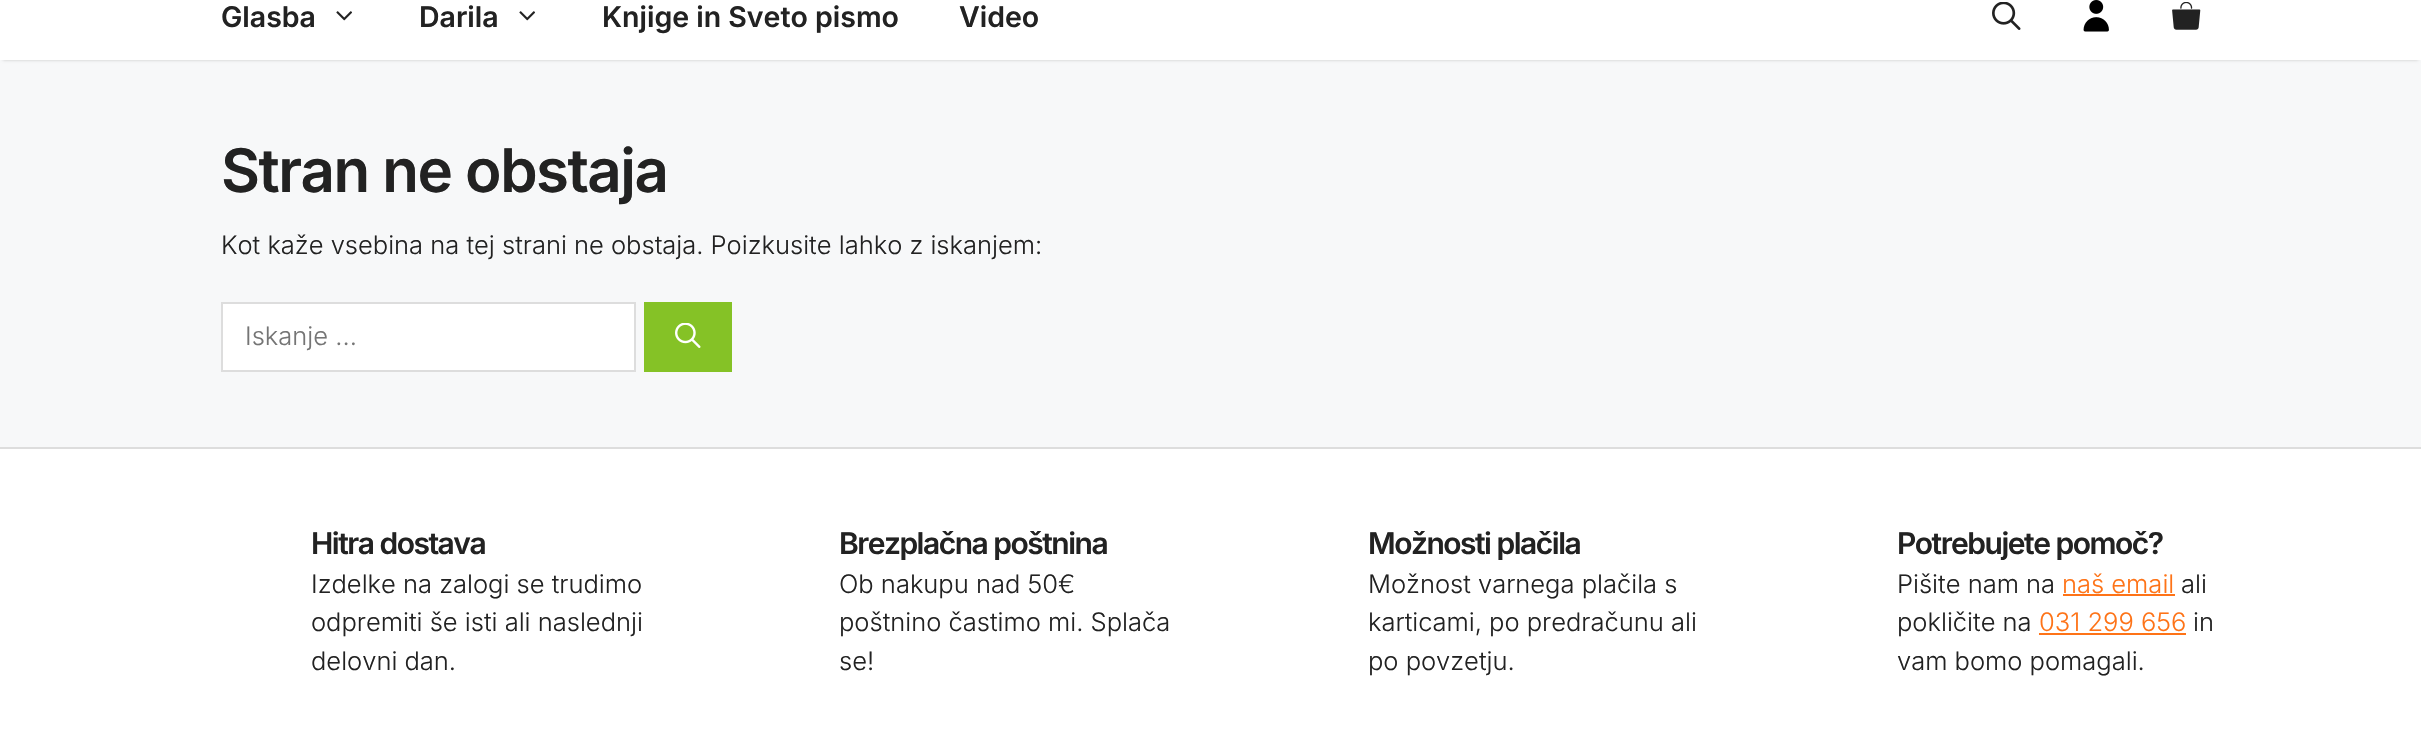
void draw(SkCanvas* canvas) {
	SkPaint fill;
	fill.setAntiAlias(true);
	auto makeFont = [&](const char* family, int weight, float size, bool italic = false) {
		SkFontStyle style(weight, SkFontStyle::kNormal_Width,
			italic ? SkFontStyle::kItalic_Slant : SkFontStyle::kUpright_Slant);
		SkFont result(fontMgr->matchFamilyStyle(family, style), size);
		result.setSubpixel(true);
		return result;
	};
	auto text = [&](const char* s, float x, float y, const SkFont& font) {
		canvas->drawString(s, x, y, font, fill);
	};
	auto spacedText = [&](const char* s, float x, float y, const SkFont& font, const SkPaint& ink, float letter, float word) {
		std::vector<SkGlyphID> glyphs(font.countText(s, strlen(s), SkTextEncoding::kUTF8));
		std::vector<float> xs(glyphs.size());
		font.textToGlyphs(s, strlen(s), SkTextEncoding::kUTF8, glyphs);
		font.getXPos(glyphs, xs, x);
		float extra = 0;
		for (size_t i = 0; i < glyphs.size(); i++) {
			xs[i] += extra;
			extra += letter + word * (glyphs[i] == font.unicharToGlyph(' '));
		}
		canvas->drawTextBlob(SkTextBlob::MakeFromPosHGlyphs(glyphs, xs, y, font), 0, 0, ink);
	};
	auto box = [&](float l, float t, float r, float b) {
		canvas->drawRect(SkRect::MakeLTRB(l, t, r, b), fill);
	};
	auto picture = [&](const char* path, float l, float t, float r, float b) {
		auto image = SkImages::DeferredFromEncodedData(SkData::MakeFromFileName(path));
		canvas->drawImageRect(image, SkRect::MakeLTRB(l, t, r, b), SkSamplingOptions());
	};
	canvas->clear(0xFFF7F8F9);
	fill.setColor(0x33000000);
	fill.setMaskFilter(SkMaskFilter::MakeBlur(kNormal_SkBlurStyle, 1.5f));
	canvas->drawRect(SkRect::MakeLTRB(3, -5, 2418, 60), fill);
	fill.setMaskFilter(nullptr);
	fill.setColor(0xFFFFFFFF);
	box(0, 0, 2421, 60);
	picture("image0.png", 336, 11, 352, 21);
	picture("image0.png", 519, 11, 535, 21);
	picture("image1.png", 1992, 2, 2021, 30);
	picture("image2.png", 2083, 0, 2109, 32);
	picture("image3.png", 2172, 2, 2201, 30);
	canvas->drawRect(SkRect::MakeLTRB(222, 303, 635, 371), fill);
	fill.setStyle(SkPaint::kStroke_Style);
	fill.setStrokeWidth(2);
	fill.setColor(0xFFDDDDDD);
	canvas->drawRect(SkRect::MakeLTRB(222, 303, 635, 371), fill);
	fill.setStyle(SkPaint::kFill_Style);
	fill.setColor(0xFF85C226);
	box(644, 302, 732, 372);
	picture("image4.png", 675, 323, 701, 348);
	fill.setColor(0xFFFFFFFF);
	box(0, 449, 2421, 738);
	fill.setColor(0xFFDDDDDD);
	box(0, 447, 2421, 449);
	fill.setColor(0xFFFE7317);
	box(2063, 594, 2175, 596);
	box(2039, 633, 2186, 635);
	auto font1 = makeFont("Inter", 600, 28.5f);
	fill.setColor(0xFF222222);
	text("Glasba", 221, 27, font1);
	text("Darila", 419, 27, font1);
	text("Knjige in Sveto pismo", 602, 27, font1);
	text("Video", 959, 27, font1);
	auto font2 = makeFont("Inter", 600, 60);
	spacedText("Stran ne obstaja", 221, 192, font2, fill, -1.5f, 0);
	auto font3 = makeFont("Inter", 300, 25.5f);
	text("Kot kaže vsebina na tej strani ne obstaja. Poizkusite lahko z iskanjem:", 221, 254, font3);
	fill.setColor(0xFF757575);
	text("Iskanje ...", 245, 345, font3);
	auto font4 = makeFont("Inter", 600, 30);
	fill.setColor(0xFF222222);
	spacedText("Hitra dostava", 311, 554, font4, fill, -1.5f, 0);
	text("Izdelke na zalogi se trudimo", 311, 593, font3);
	text("odpremiti še isti ali naslednji", 311, 631, font3);
	text("delovni dan.", 311, 670, font3);
	spacedText("Brezplačna poštnina", 839, 554, font4, fill, -1.5f, 0);
	text("Ob nakupu nad 50€", 839, 593, font3);
	text("poštnino častimo mi. Splača", 839, 631, font3);
	text("se!", 839, 670, font3);
	spacedText("Možnosti plačila", 1368, 554, font4, fill, -1.5f, 0);
	text("Možnost varnega plačila s", 1368, 593, font3);
	text("karticami, po predračunu ali", 1368, 631, font3);
	text("po povzetju.", 1368, 670, font3);
	spacedText("Potrebujete pomoč?", 1897, 554, font4, fill, -1.5f, 0);
	text("Pišite nam na", 1897, 593, font3);
	fill.setColor(0xFFFE7317);
	text("naš email", 2062, 593, font3);
	fill.setColor(0xFF222222);
	text("ali", 2181, 593, font3);
	text("pokličite na", 1897, 631, font3);
	fill.setColor(0xFFFE7317);
	text("031 299 656", 2039, 631, font3);
	fill.setColor(0xFF222222);
	text("in", 2193, 631, font3);
	text("vam bomo pomagali.", 1897, 670, font3);
}
